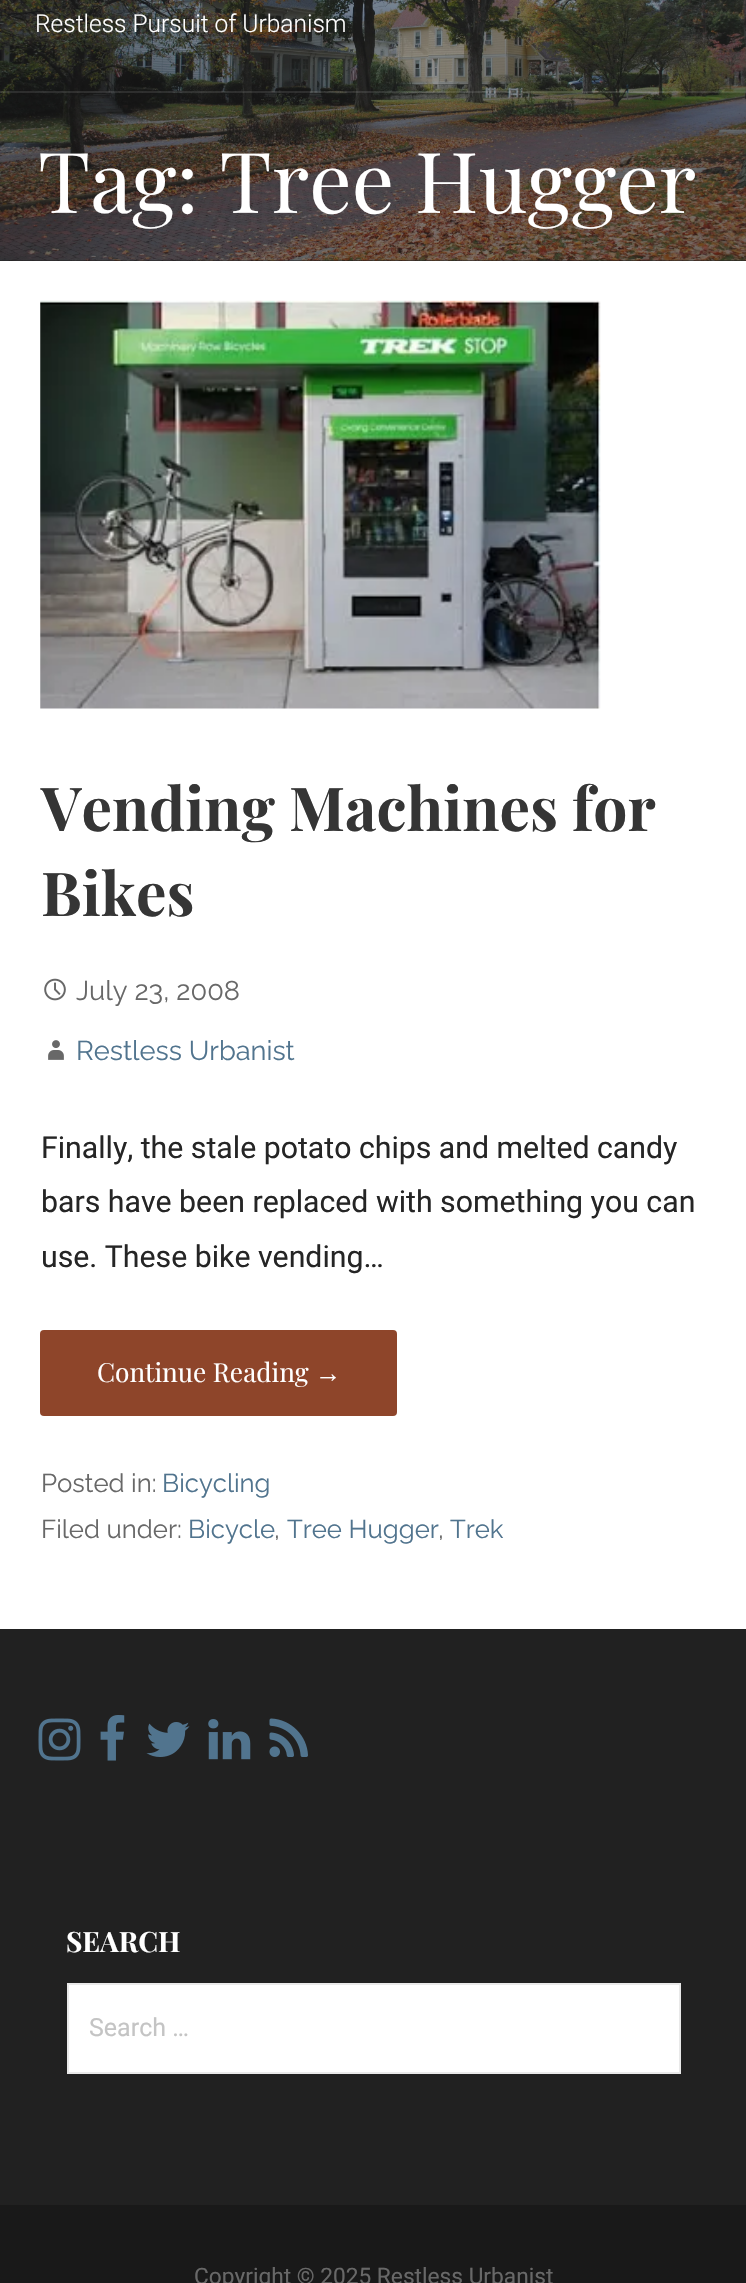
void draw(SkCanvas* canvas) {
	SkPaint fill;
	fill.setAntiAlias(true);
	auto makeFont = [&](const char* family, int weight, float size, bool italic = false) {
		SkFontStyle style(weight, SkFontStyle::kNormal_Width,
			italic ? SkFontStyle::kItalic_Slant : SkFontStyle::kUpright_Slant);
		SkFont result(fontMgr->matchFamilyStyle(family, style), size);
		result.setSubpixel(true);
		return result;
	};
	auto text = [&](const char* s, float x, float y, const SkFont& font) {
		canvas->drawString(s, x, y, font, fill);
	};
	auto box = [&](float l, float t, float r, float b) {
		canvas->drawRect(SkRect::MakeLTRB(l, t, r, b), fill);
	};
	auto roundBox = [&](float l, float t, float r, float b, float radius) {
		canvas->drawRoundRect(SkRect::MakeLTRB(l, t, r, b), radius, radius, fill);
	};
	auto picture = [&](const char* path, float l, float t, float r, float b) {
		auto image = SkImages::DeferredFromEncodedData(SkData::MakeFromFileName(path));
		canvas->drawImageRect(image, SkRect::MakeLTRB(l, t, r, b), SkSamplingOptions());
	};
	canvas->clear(0xFFFFFFFF);
	fill.setColor(0xFF212121);
	box(0, 260, 746, 261);
	picture("image0.png", 0, 0, 746, 261);
	fill.setColor(0x1AFFFFFF);
	box(0, 91, 746, 93);
	picture("image1.png", 40, 300, 601, 709);
	picture("image2.png", 44, 978, 66, 1001);
	picture("image3.png", 48, 1040, 64, 1060);
	fill.setColor(0xFF8E452A);
	roundBox(40, 1330, 397, 1416, 4);
	fill.setColor(0xFF212121);
	box(0, 1629, 746, 2205);
	picture("image4.png", 38, 1718, 81, 1761);
	picture("image5.png", 100, 1715, 125, 1761);
	picture("image6.png", 146, 1722, 190, 1757);
	picture("image7.png", 208, 1719, 251, 1760);
	picture("image8.png", 269, 1718, 308, 1757);
	fill.setColor(0xFFFFFFFF);
	canvas->drawRect(SkRect::MakeLTRB(68, 1984, 680, 2073), fill);
	fill.setStyle(SkPaint::kStroke_Style);
	fill.setStrokeWidth(2);
	fill.setColor(0xFFE9E9E9);
	canvas->drawRect(SkRect::MakeLTRB(68, 1984, 680, 2073), fill);
	fill.setStyle(SkPaint::kFill_Style);
	fill.setColor(0xFF191919);
	box(0, 2205, 746, 2283);
	auto font1 = makeFont("Roboto", 300, 24.5f);
	fill.setColor(0xFFFFFFFF);
	text("Restless Pursuit of Urbanism", 35, 32, font1);
	auto font2 = makeFont("Playfair Display", 400, 84);
	text("Tag: Tree Hugger", 38, 213, font2);
	auto font3 = makeFont("Playfair Display", 700, 60.5f);
	fill.setColor(0xFF353535);
	text("Vending Machines for", 41, 831, font3);
	text("Bikes", 41, 916, font3);
	auto font4 = makeFont("Raleway", 400, 27.25f);
	fill.setColor(0xFF686868);
	text("July 23, 2008", 76, 1000, font4);
	fill.setColor(0xFF51748E);
	text("Restless Urbanist", 76, 1060, font4);
	auto font5 = makeFont("Roboto", 400, 30.25f);
	fill.setColor(0xFF252525);
	text("Finally, the stale potato chips and melted candy", 41, 1158, font5);
	text("bars have been replaced with something you can", 41, 1212, font5);
	text("use. These bike vending…", 41, 1267, font5);
	auto font6 = makeFont("Playfair Display", 400, 26.25f);
	fill.setColor(0xFFFFFFFF);
	text("Continue Reading", 97, 1382, font6);
	auto font7 = makeFont("Liberation Sans", 400, 26.25f);
	text("→", 315, 1382, font7);
	auto font8 = makeFont("Raleway", 400, 25.75f);
	fill.setColor(0xFF686868);
	text("Posted in:", 41, 1492, font8);
	fill.setColor(0xFF51748E);
	text("Bicycling", 162, 1492, font8);
	fill.setColor(0xFF686868);
	text("Filed under:", 41, 1538, font8);
	fill.setColor(0xFF51748E);
	text("Bicycle", 188, 1538, font8);
	fill.setColor(0xFF686868);
	text(",", 274, 1538, font8);
	fill.setColor(0xFF51748E);
	text("Tree Hugger", 287, 1538, font8);
	fill.setColor(0xFF686868);
	text(",", 438, 1538, font8);
	fill.setColor(0xFF51748E);
	text("Trek", 450, 1538, font8);
	auto font9 = makeFont("Playfair Display", 700, 28);
	fill.setColor(0xFFFFFFFF);
	text("SEARCH", 66, 1952, font9);
	auto font10 = makeFont("Roboto", 400, 25);
	fill.setColor(0xFFC4C4C4);
	text("Search …", 89, 2036, font10);
	auto font11 = makeFont("Roboto", 400, 22.7f);
	fill.setColor(0xFF686868);
	text("Copyright © 2025 Restless Urbanist", 194, 2284, font11);
}
